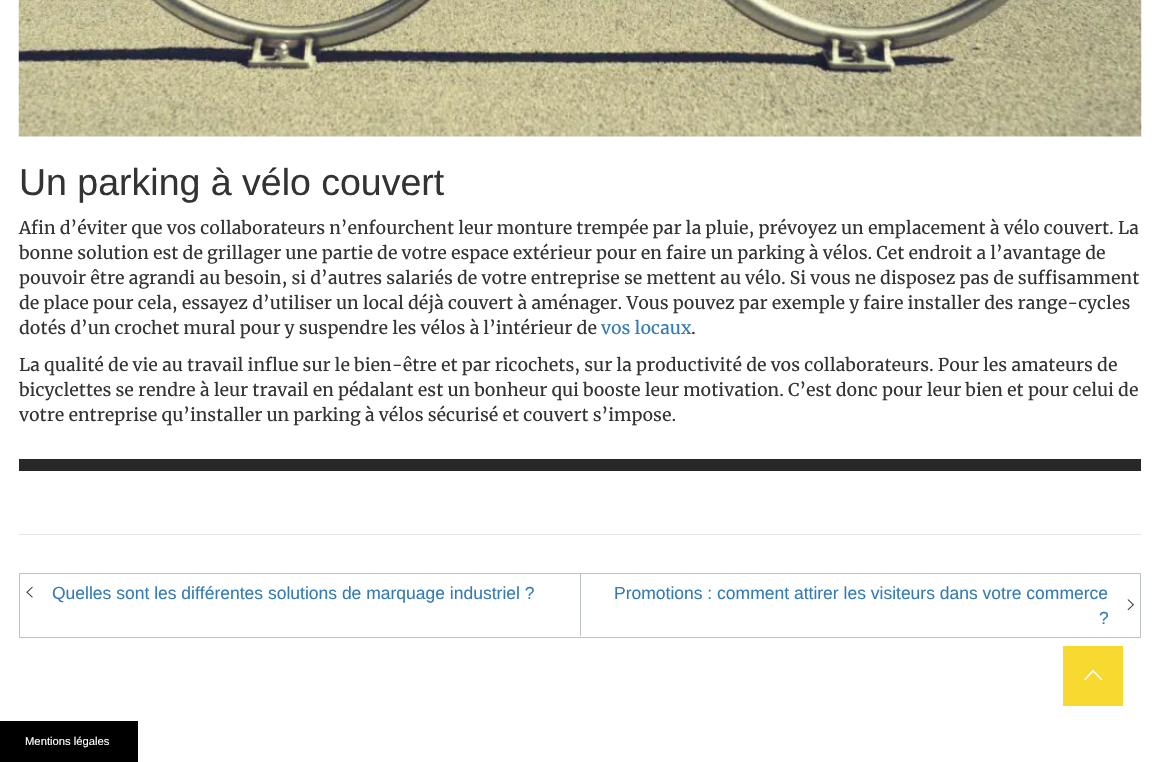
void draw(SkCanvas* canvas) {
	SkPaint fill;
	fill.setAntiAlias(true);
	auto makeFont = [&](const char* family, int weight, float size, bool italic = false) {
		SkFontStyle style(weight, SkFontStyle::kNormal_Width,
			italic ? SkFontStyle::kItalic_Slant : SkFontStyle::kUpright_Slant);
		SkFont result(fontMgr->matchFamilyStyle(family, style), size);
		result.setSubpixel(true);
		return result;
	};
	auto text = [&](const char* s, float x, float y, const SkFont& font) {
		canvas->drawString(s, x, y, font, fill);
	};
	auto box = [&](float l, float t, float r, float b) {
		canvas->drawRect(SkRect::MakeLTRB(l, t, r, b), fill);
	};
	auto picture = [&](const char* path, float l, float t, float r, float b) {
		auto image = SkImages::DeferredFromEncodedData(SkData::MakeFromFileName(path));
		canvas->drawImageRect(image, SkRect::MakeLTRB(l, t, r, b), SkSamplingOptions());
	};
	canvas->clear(0xFFFFFFFF);
	fill.setColor(0xFFE8E8E8);
	box(19, 534, 1141, 535);
	picture("image0.png", 18, 0, 1142, 137);
	fill.setColor(0xFF282828);
	box(19, 459, 1141, 471);
	fill.setStyle(SkPaint::kStroke_Style);
	fill.setStrokeWidth(1);
	fill.setColor(0xFFBAC2CC);
	canvas->drawRect(SkRect::MakeLTRB(19.5f, 573.5f, 1140.5f, 637.5f), fill);
	fill.setStyle(SkPaint::kFill_Style);
	box(580, 574, 581, 636);
	picture("image1.png", 26, 586, 33, 598);
	picture("image2.png", 1127, 599, 1134, 611);
	fill.setColor(0xFFF8D92F);
	box(1063, 646, 1123, 706);
	fill.setColor(0xFFFFFFFF);
	canvas->drawPath(SkPathBuilder().moveTo(1101.5f, 680.5f).lineTo(1093, 672).lineTo(1085, 680.5f).lineTo(1084, 679.5f).lineTo(1093, 669.5f).lineTo(1102.5f, 679.5f).close().detach(), fill);
	fill.setColor(0xFF000000);
	box(0, 721, 138, 762);
	auto font1 = makeFont("Liberation Sans", 400, 37.5f);
	fill.setColor(0xFF333333);
	text("Un parking à vélo couvert", 19, 195, font1);
	auto font2 = makeFont("Merriweather", 400, 17.5f);
	text("Afin d’éviter que vos collaborateurs n’enfourchent leur monture trempée par la pluie, prévoyez un emplacement à vélo couvert. La", 19, 234, font2);
	text("bonne solution est de grillager une partie de votre espace extérieur pour en faire un parking à vélos. Cet endroit a l’avantage de", 19, 259, font2);
	text("pouvoir être agrandi au besoin, si d’autres salariés de votre entreprise se mettent au vélo. Si vous ne disposez pas de suffisamment", 19, 284, font2);
	text("de place pour cela, essayez d’utiliser un local déjà couvert à aménager. Vous pouvez par exemple y faire installer des range-cycles", 19, 309, font2);
	text("dotés d’un crochet mural pour y suspendre les vélos à l’intérieur de", 19, 334, font2);
	fill.setColor(0xFF337AB7);
	text("vos locaux", 601, 334, font2);
	fill.setColor(0xFF333333);
	text(".", 691, 334, font2);
	text("La qualité de vie au travail influe sur le bien-être et par ricochets, sur la productivité de vos collaborateurs. Pour les amateurs de", 19, 371, font2);
	text("bicyclettes se rendre à leur travail en pédalant est un bonheur qui booste leur motivation. C’est donc pour leur bien et pour celui de", 19, 396, font2);
	text("votre entreprise qu’installer un parking à vélos sécurisé et couvert s’impose.", 19, 421, font2);
	auto font3 = makeFont("Liberation Sans", 400, 17.5f);
	fill.setColor(0xFF337AB7);
	text("Quelles sont les différentes solutions de marquage industriel ?", 52, 599, font3);
	text("Promotions : comment attirer les visiteurs dans votre commerce", 614, 599, font3);
	text("?", 1099, 624, font3);
	auto font4 = makeFont("Liberation Sans", 400, 11.25f);
	fill.setColor(0xFFFFFFFF);
	text("Mentions légales", 25, 745, font4);
}
